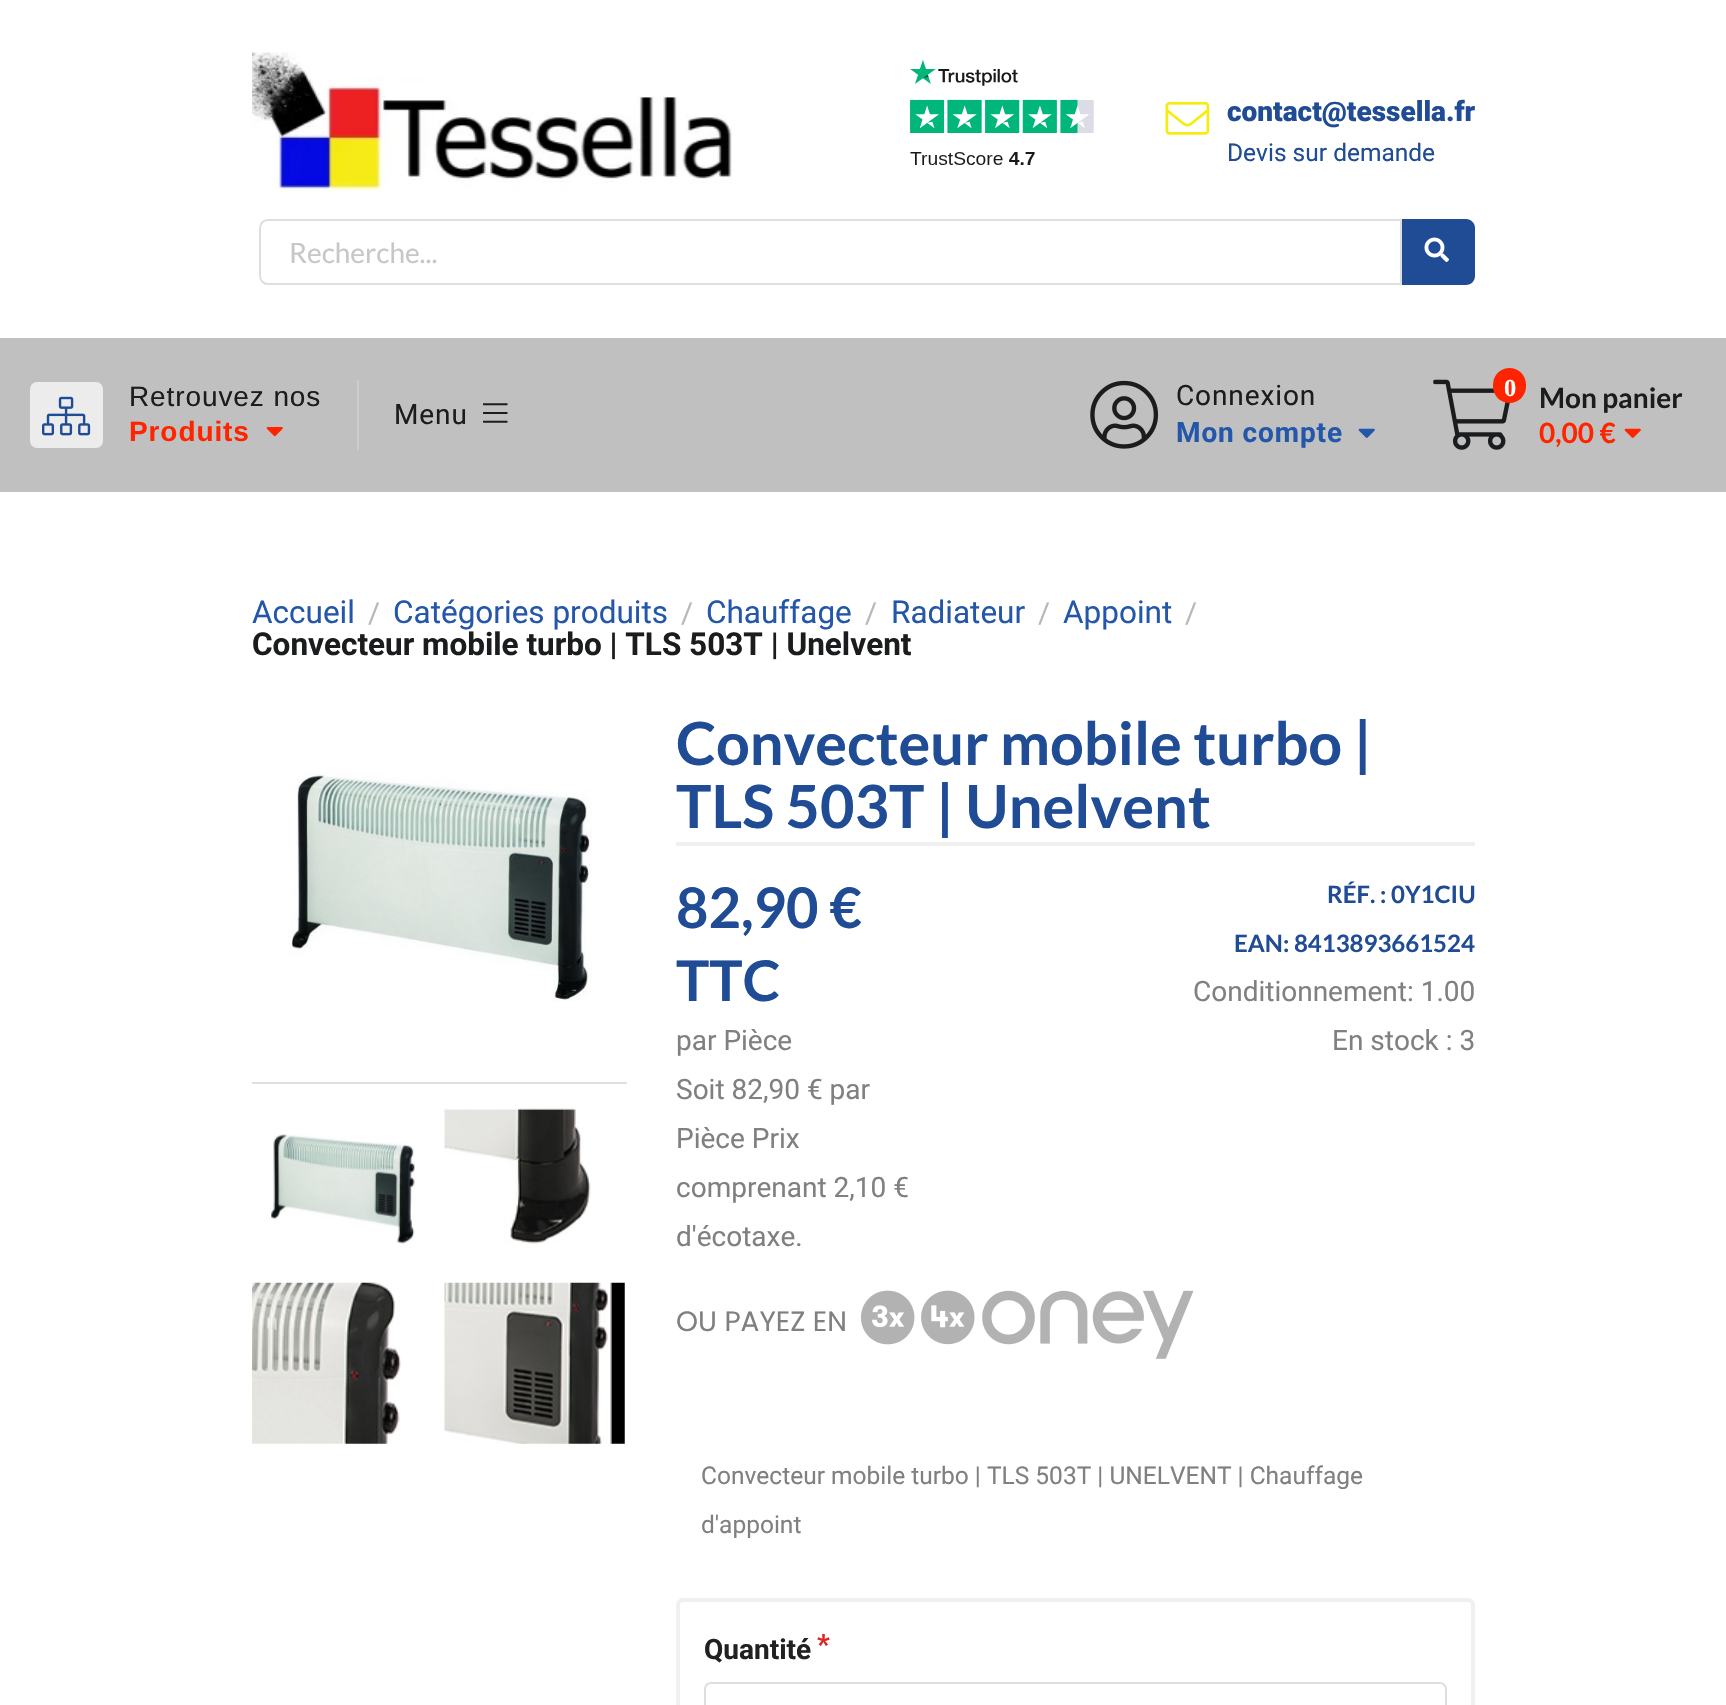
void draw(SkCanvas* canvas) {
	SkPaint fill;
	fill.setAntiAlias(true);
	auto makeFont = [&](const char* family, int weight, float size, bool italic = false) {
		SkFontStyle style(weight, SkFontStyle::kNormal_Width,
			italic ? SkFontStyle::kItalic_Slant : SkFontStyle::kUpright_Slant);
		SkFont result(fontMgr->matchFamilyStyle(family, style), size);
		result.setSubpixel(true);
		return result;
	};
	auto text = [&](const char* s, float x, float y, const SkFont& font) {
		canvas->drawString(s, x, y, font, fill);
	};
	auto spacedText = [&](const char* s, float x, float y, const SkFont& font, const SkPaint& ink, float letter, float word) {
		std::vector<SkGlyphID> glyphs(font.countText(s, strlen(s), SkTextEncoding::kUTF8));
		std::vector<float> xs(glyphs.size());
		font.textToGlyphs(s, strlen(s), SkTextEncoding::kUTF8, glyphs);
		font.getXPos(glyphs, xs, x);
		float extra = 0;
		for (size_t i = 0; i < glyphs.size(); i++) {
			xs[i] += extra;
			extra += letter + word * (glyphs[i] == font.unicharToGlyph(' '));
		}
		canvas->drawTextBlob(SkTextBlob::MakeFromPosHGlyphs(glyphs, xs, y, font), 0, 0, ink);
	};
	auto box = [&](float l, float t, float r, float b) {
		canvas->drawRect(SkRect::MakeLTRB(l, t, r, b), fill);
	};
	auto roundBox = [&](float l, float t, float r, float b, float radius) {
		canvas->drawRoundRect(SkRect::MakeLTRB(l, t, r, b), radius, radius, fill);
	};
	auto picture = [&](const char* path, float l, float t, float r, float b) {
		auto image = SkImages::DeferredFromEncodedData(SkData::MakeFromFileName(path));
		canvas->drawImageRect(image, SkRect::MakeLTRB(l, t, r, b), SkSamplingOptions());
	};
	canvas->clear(0xFFFFFFFF);
	picture("image0.png", 252, 52, 732, 191);
	picture("image1.png", 910, 60, 1094, 165);
	picture("image2.png", 1165, 101, 1210, 135);
	fill.setStyle(SkPaint::kStroke_Style);
	fill.setStrokeWidth(2);
	fill.setColor(0xFFDEDEDE);
	canvas->drawPath(SkPathBuilder().moveTo(268, 220).lineTo(1401, 220).lineTo(1401, 284).lineTo(268, 284).cubicTo(263.5f, 284, 260, 280.5f, 260, 276).lineTo(260, 228).cubicTo(260, 223.5f, 263.5f, 220, 268, 220).close().detach(), fill);
	fill.setStyle(SkPaint::kFill_Style);
	fill.setColor(0xFF1F4C94);
	canvas->drawPath(SkPathBuilder().moveTo(1402, 219).lineTo(1466, 219).cubicTo(1471, 219, 1475, 223, 1475, 228).lineTo(1475, 276).cubicTo(1475, 281, 1471, 285, 1466, 285).lineTo(1402, 285).close().detach(), fill);
	picture("image3.png", 1424, 237, 1449, 262);
	fill.setColor(0xFFC0C0C0);
	box(0, 338, 1726, 492);
	fill.setColor(0xFFCCCCCC);
	box(357, 380, 359, 450);
	fill.setColor(0xFFECECEC);
	roundBox(30, 382, 103, 448, 7);
	picture("image4.png", 42, 396, 91, 436);
	picture("image5.png", 266, 427, 283, 437);
	picture("image6.png", 483, 403, 508, 423);
	picture("image7.png", 1090, 380, 1159, 449);
	picture("image8.png", 1358, 428, 1375, 438);
	picture("image9.png", 1433, 379, 1510, 450);
	fill.setColor(0xFFFF2400);
	roundBox(1493, 368, 1526, 403, 16.5f);
	picture("image10.png", 1624, 428, 1641, 438);
	picture("image11.png", 289, 773, 592, 1002);
	fill.setColor(0xFFDEDEDE);
	box(252, 1082, 627, 1083);
	fill.setColor(0xFFE1E1E1);
	box(252, 1083, 627, 1084);
	picture("image12.png", 271, 1134, 415, 1244);
	picture("image13.png", 444, 1108, 591, 1244);
	picture("image14.png", 252, 1282, 401, 1444);
	picture("image15.png", 444, 1282, 625, 1444);
	fill.setColor(0xFFF0F0F0);
	box(676, 842, 1475, 846);
	picture("image16.png", 861, 1290, 1194, 1359);
	fill.setStyle(SkPaint::kStroke_Style);
	fill.setStrokeWidth(4);
	canvas->drawRoundRect(SkRect::MakeLTRB(678, 1600, 1473, 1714), 5, 5, fill);
	fill.setStrokeWidth(2);
	fill.setColor(0xFFDEDEDE);
	canvas->drawRoundRect(SkRect::MakeLTRB(705, 1683, 1446, 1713), 6, 6, fill);
	auto font1 = makeFont("Roboto", 900, 28);
	fill.setStyle(SkPaint::kFill_Style);
	fill.setColor(0xFF1F4C94);
	text("contact@tessella.fr", 1227, 121, font1);
	auto font2 = makeFont("Roboto", 400, 24.5f);
	text("Devis sur demande", 1227, 161, font2);
	auto font3 = makeFont("Lato", 400, 28);
	fill.setColor(0xFFC7C7C7);
	text("Recherche...", 289, 263, font3);
	auto font4 = makeFont("Liberation Sans", 400, 28);
	fill.setColor(0xFF1B1C1D);
	spacedText("Retrouvez nos", 129, 406, font4, fill, 0.9f, 0);
	auto font5 = makeFont("Liberation Sans", 700, 28);
	fill.setColor(0xFFFF2400);
	spacedText("Produits", 129, 441, font5, fill, 0.9f, 0);
	auto font6 = makeFont("Roboto", 400, 28);
	fill.setColor(0xFF1B1C1D);
	spacedText("Menu", 394, 424, font6, fill, 0.9f, 0);
	spacedText("Connexion", 1176, 405, font6, fill, 0.9f, 0);
	auto font7 = makeFont("Roboto", 700, 28);
	fill.setColor(0xFF2457AA);
	spacedText("Mon compte", 1176, 442, font7, fill, 0.9f, 0);
	auto font8 = makeFont("Liberation Serif", 700, 24.5f);
	fill.setColor(0xFFFFFFFF);
	text("0", 1504, 396, font8);
	auto font9 = makeFont("Lato", 700, 28);
	fill.setColor(0xFF1B1C1D);
	text("Mon panier", 1539, 408, font9);
	fill.setColor(0xFFFF2400);
	text("0,00 €", 1539, 443, font9);
	auto font10 = makeFont("Roboto", 400, 31.5f);
	fill.setColor(0xFF2457AA);
	text("Accueil", 252, 623, font10);
	auto font11 = makeFont("Roboto", 400, 29);
	fill.setColor(0xFFB8B8B8);
	text("/", 368, 623, font11);
	fill.setColor(0xFF2457AA);
	text("Catégories produits", 393, 623, font10);
	fill.setColor(0xFFB8B8B8);
	text("/", 681, 623, font11);
	fill.setColor(0xFF2457AA);
	text("Chauffage", 706, 623, font10);
	fill.setColor(0xFFB8B8B8);
	text("/", 865, 623, font11);
	fill.setColor(0xFF2457AA);
	text("Radiateur", 891, 623, font10);
	fill.setColor(0xFFB8B8B8);
	text("/", 1038, 623, font11);
	fill.setColor(0xFF2457AA);
	text("Appoint", 1063, 623, font10);
	fill.setColor(0xFFB8B8B8);
	text("/", 1185, 623, font11);
	auto font12 = makeFont("Roboto", 700, 31.5f);
	fill.setColor(0xFF1B1C1D);
	text("Convecteur mobile turbo | TLS 503T | Unelvent", 252, 655, font12);
	auto font13 = makeFont("Lato", 700, 59.5f);
	fill.setColor(0xFF1F4C94);
	text("Convecteur mobile turbo |", 676, 765, font13);
	text("TLS 503T | Unelvent", 676, 828, font13);
	auto font14 = makeFont("Lato", 700, 56);
	text("82,90 €", 676, 928, font14);
	text("TTC", 676, 1001, font14);
	fill.setColor(0xFF808080);
	text("par Pièce", 676, 1050, font6);
	text("Soit 82,90 € par", 676, 1099, font6);
	text("Pièce Prix", 676, 1148, font6);
	text("comprenant 2,10 €", 676, 1197, font6);
	text("d'écotaxe.", 676, 1246, font6);
	auto font15 = makeFont("Lato", 700, 24);
	fill.setColor(0xFF1F4C94);
	text("RÉF. : 0Y1CIU", 1327, 903, font15);
	text("EAN: 8413893661524", 1234, 952, font15);
	fill.setColor(0xFF808080);
	text("Conditionnement: 1.00", 1193, 1001, font6);
	text("En stock : 3", 1332, 1050, font6);
	auto font16 = makeFont("Poppins", 400, 28);
	text("OU PAYEZ EN", 676, 1331, font16);
	text("Convecteur mobile turbo | TLS 503T | UNELVENT | Chauffage", 701, 1484, font2);
	text("d'appoint", 701, 1533, font2);
	fill.setColor(0xFF212121);
	text("Quantité", 704, 1659, font7);
	fill.setColor(0xFFDB2828);
	text("*", 817, 1654, font7);
}
